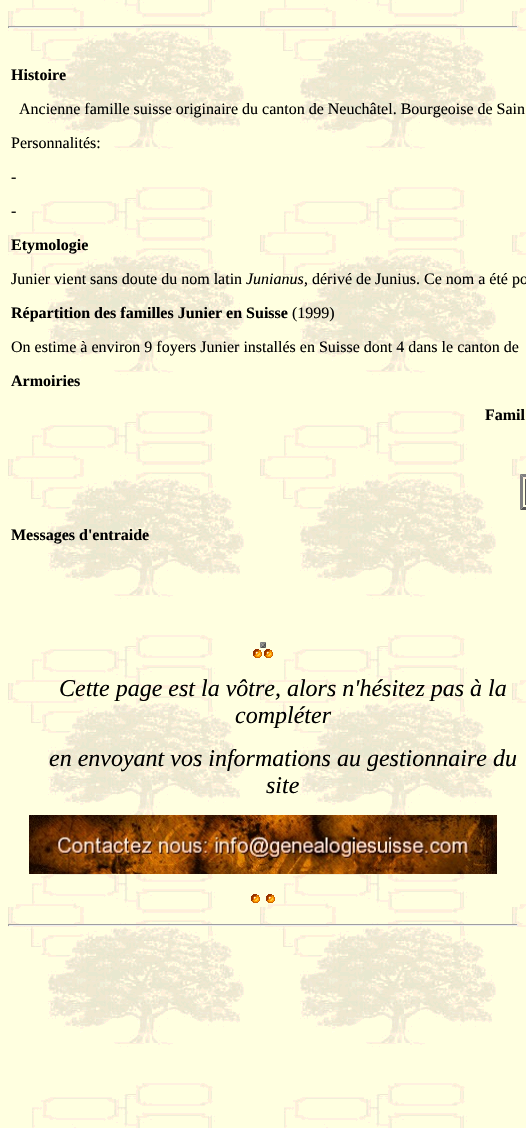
void draw(SkCanvas* canvas) {
	SkPaint fill;
	fill.setAntiAlias(true);
	auto makeFont = [&](const char* family, int weight, float size, bool italic = false) {
		SkFontStyle style(weight, SkFontStyle::kNormal_Width,
			italic ? SkFontStyle::kItalic_Slant : SkFontStyle::kUpright_Slant);
		SkFont result(fontMgr->matchFamilyStyle(family, style), size);
		result.setSubpixel(true);
		return result;
	};
	auto text = [&](const char* s, float x, float y, const SkFont& font) {
		canvas->drawString(s, x, y, font, fill);
	};
	auto box = [&](float l, float t, float r, float b) {
		canvas->drawRect(SkRect::MakeLTRB(l, t, r, b), fill);
	};
	auto picture = [&](const char* path, float l, float t, float r, float b) {
		auto image = SkImages::DeferredFromEncodedData(SkData::MakeFromFileName(path));
		canvas->drawImageRect(image, SkRect::MakeLTRB(l, t, r, b), SkSamplingOptions());
	};
	canvas->clear(0xFFFFFFFF);
	picture("image0.png", 0, 0, 526, 1128);
	fill.setColor(0xFF9F9F9F);
	box(8, 26, 518, 27);
	fill.setColor(0xFFEEEEEE);
	box(517, 26, 518, 28);
	box(8, 27, 518, 28);
	fill.setColor(0xFF9F9F9F);
	box(8, 26, 9, 28);
	fill.setColor(0xFF808080);
	canvas->drawPath(SkPathBuilder().moveTo(520, 474).lineTo(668, 474).lineTo(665, 477).lineTo(523, 477).close().detach(), fill);
	fill.setColor(0xFF555555);
	canvas->drawPath(SkPathBuilder().moveTo(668, 510).lineTo(520, 510).lineTo(523, 507).lineTo(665, 507).close().detach(), fill);
	fill.setColor(0xFF808080);
	canvas->drawPath(SkPathBuilder().moveTo(520, 510).lineTo(520, 474).lineTo(523, 477).lineTo(523, 507).close().detach(), fill);
	fill.setColor(0xFF555555);
	box(525, 479, 526, 505);
	fill.setColor(0xFF808080);
	canvas->drawPath(SkPathBuilder().moveTo(260, 642).lineTo(266, 642).lineTo(263, 645).close().detach(), fill);
	fill.setColor(0xFF555555);
	canvas->drawPath(SkPathBuilder().moveTo(266, 642).lineTo(266, 648).lineTo(263, 645).close().detach(), fill);
	canvas->drawPath(SkPathBuilder().moveTo(266, 648).lineTo(260, 648).lineTo(263, 645).close().detach(), fill);
	fill.setColor(0xFF808080);
	canvas->drawPath(SkPathBuilder().moveTo(260, 648).lineTo(260, 642).lineTo(263, 645).close().detach(), fill);
	picture("image1.png", 253, 649, 262, 658);
	picture("image1.png", 264, 649, 273, 658);
	picture("image2.png", 29, 815, 497, 874);
	picture("image1.png", 251, 894, 260, 903);
	picture("image1.png", 266, 894, 275, 903);
	fill.setColor(0xFF9F9F9F);
	box(8, 924, 518, 925);
	fill.setColor(0xFFEEEEEE);
	box(517, 924, 518, 926);
	box(8, 925, 518, 926);
	fill.setColor(0xFF9F9F9F);
	box(8, 924, 9, 926);
	auto font1 = makeFont("Liberation Serif", 700, 16);
	fill.setColor(0xFF000000);
	text("Histoire", 11, 80, font1);
	auto font2 = makeFont("Liberation Serif", 400, 16);
	text("Ancienne famille suisse originaire du canton de Neuchâtel. Bourgeoise de Sain", 19, 114, font2);
	text("Personnalités:", 11, 148, font2);
	text("-", 11, 182, font2);
	text("-", 11, 216, font2);
	text("Etymologie", 11, 250, font1);
	text("Junier vient sans doute du nom latin", 11, 284, font2);
	auto font3 = makeFont("Liberation Serif", 400, 16, true);
	text("Junianus", 246, 284, font3);
	text(", dérivé de Junius. Ce nom a été po", 304, 284, font2);
	text("Répartition des familles Junier en Suisse", 11, 318, font1);
	text("(1999)", 292, 318, font2);
	text("On estime à environ 9 foyers Junier installés en Suisse dont 4 dans le canton de", 11, 352, font2);
	text("Armoiries", 11, 386, font1);
	text("Famil", 485, 420, font1);
	text("Messages d'entraide", 11, 540, font1);
	auto font4 = makeFont("Liberation Serif", 400, 24, true);
	text("Cette page est la vôtre, alors n'hésitez pas à la", 59, 696, font4);
	text("compléter", 235, 723, font4);
	text("en envoyant vos informations au gestionnaire du", 49, 766, font4);
	text("site", 266, 793, font4);
}
